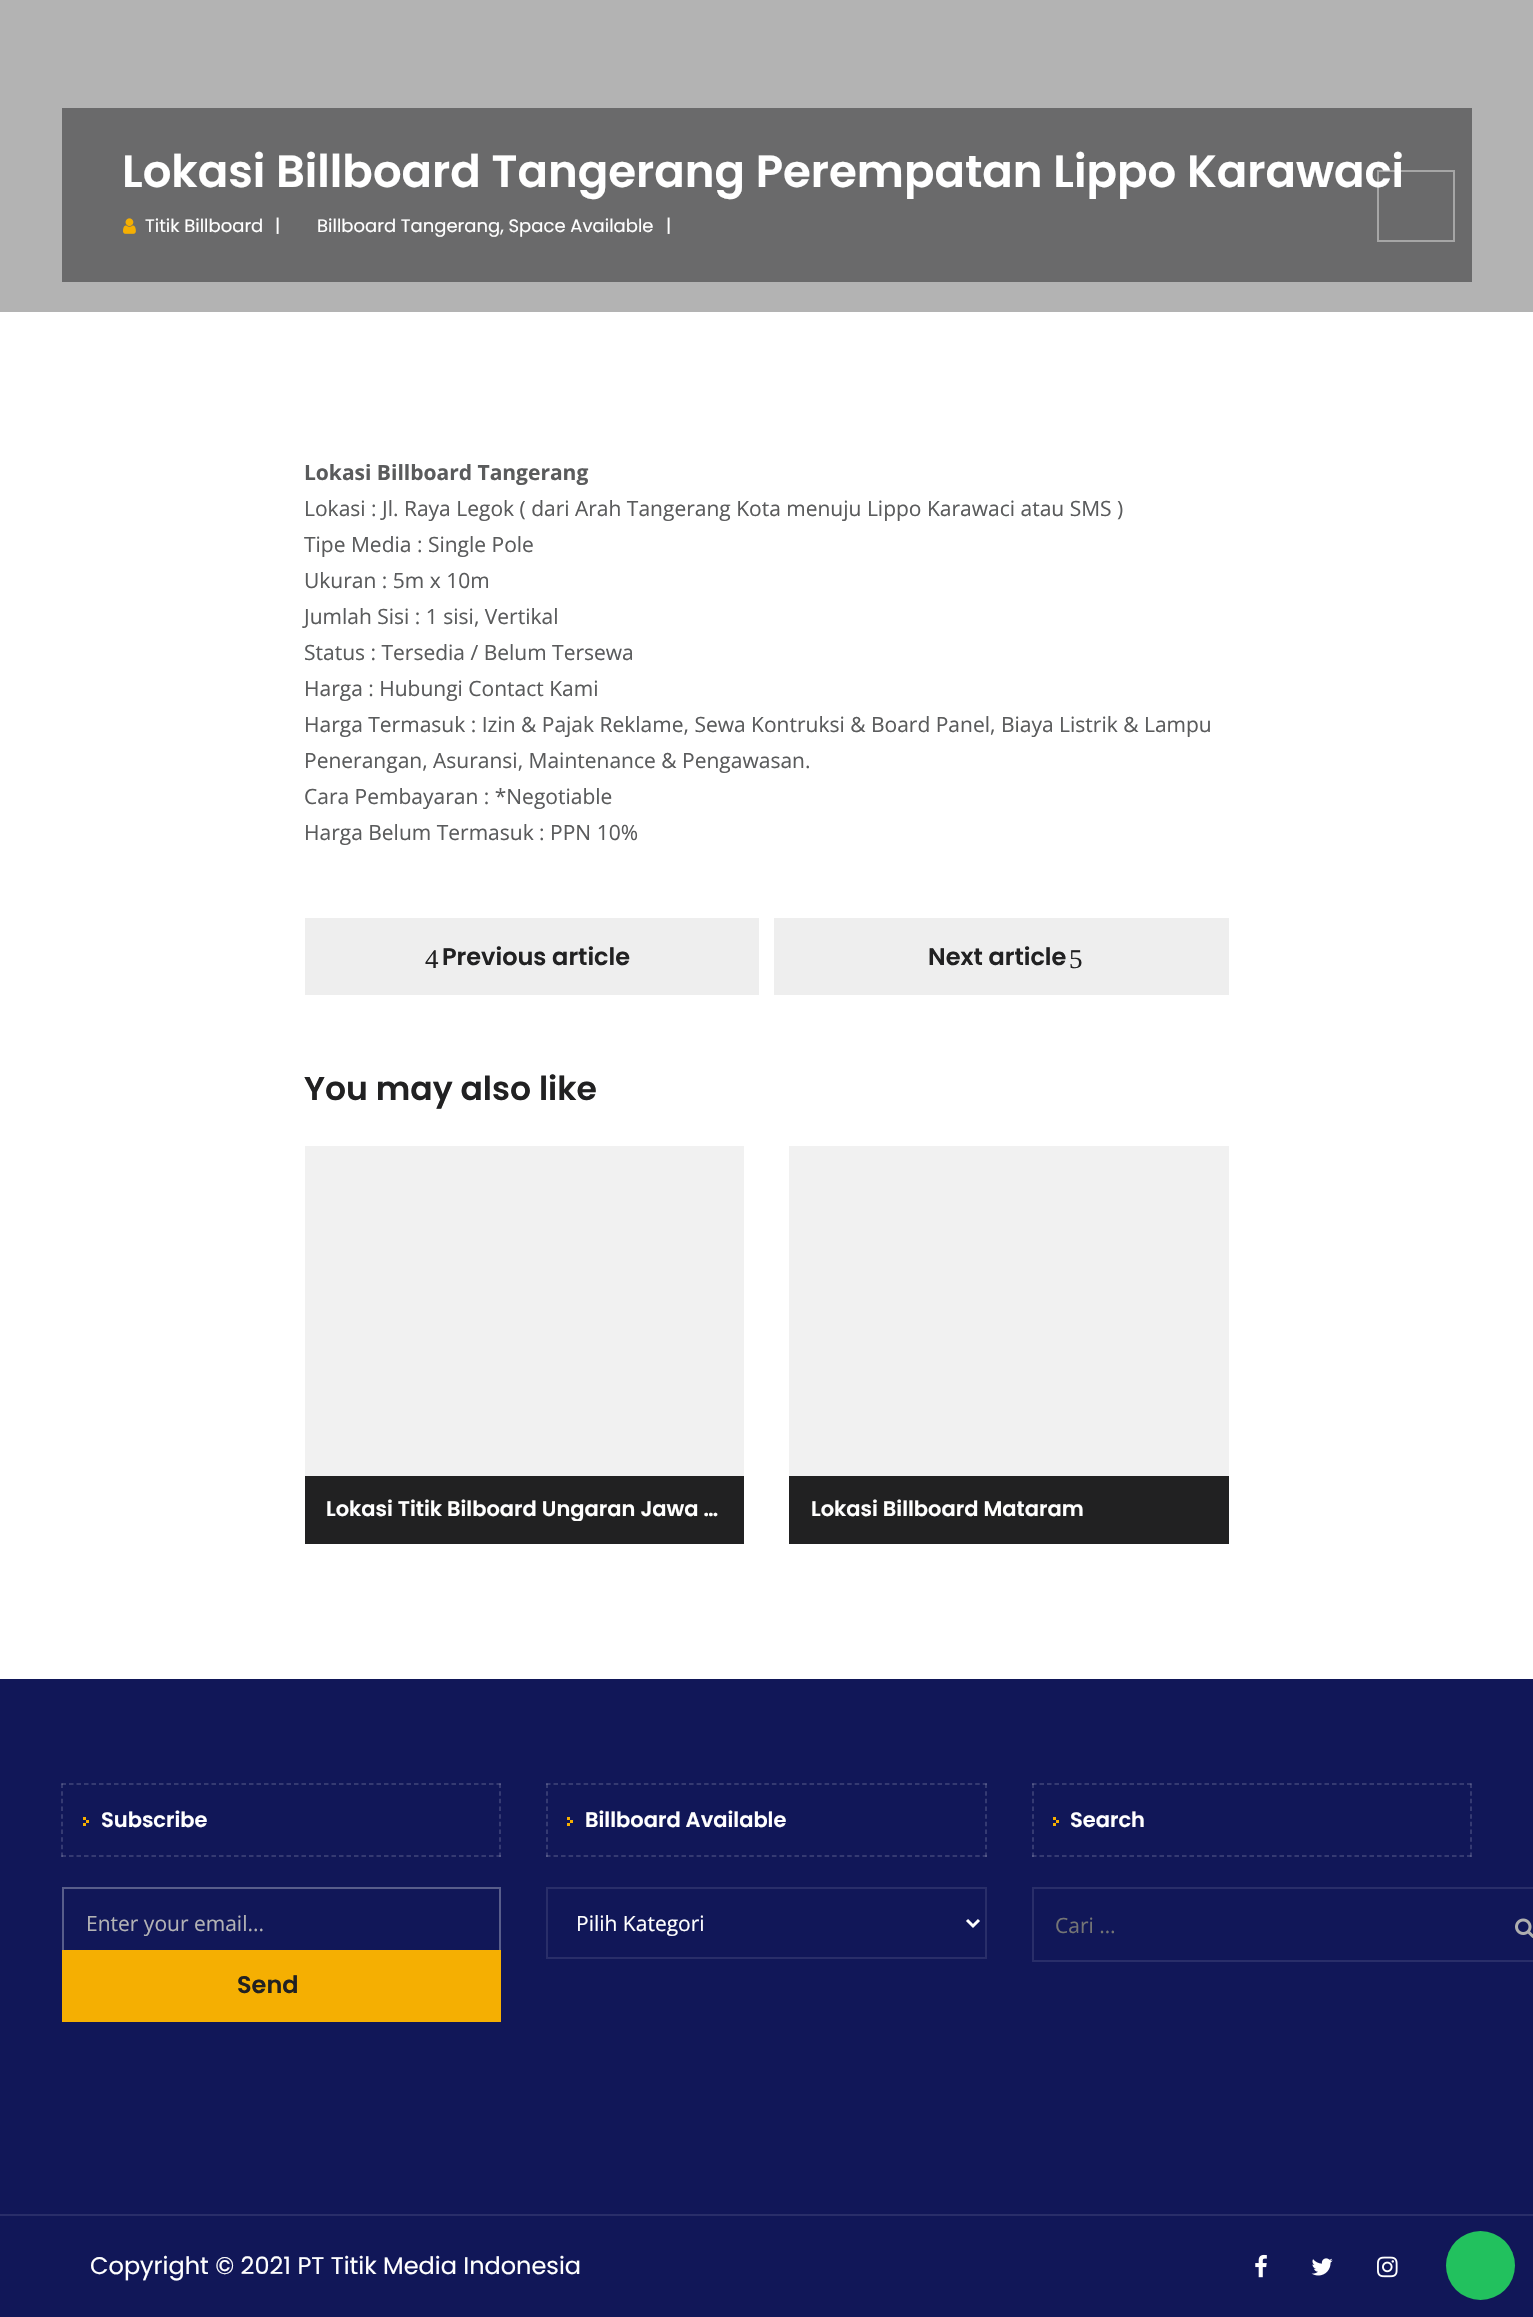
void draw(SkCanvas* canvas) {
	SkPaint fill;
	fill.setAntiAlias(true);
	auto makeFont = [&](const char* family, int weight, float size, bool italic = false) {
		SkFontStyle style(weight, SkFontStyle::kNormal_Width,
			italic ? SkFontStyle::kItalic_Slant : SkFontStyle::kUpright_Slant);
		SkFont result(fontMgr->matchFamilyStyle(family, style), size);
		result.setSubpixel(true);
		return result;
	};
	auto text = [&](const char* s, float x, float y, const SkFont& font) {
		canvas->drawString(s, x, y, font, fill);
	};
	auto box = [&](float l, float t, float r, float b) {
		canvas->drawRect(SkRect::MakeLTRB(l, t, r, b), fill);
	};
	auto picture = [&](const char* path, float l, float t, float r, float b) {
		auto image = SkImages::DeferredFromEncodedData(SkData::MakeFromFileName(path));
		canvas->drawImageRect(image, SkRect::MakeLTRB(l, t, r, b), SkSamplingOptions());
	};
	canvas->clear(0xFFFFFFFF);
	fill.setColor(0xFFB3B3B3);
	box(0, 0, 1533, 312);
	fill.setColor(0xFF6A6A6B);
	box(62, 108, 1472, 282);
	picture("image0.png", 123, 218, 136, 234);
	fill.setColor(0xFFEEEEEE);
	box(305, 918, 759, 995);
	box(774, 918, 1229, 995);
	fill.setColor(0xFFF1F1F1);
	box(305, 1146, 744, 1476);
	fill.setColor(0xFF212122);
	box(305, 1476, 744, 1544);
	fill.setColor(0xFFF1F1F1);
	box(789, 1146, 1229, 1476);
	fill.setColor(0xFF212122);
	box(789, 1476, 1229, 1544);
	fill.setColor(0xFF111758);
	box(0, 1679, 1533, 2317);
	fill.setStyle(SkPaint::kStroke_Style);
	fill.setStrokeWidth(1.5f);
	fill.setColor(0xFF414579);
	fill.setPathEffect(SkDashPathEffect::Make({{4.5f, 3}}, 0));
	canvas->drawPath(SkPathBuilder().moveTo(61.5f, 1784).lineTo(501, 1784).detach(), fill);
	fill.setPathEffect(nullptr);
	fill.setColor(0x33FFFFFF);
	fill.setPathEffect(SkDashPathEffect::Make({{4.5f, 3.17f}}, 0));
	canvas->drawPath(SkPathBuilder().moveTo(500, 1783.5f).lineTo(500, 1857).detach(), fill);
	fill.setPathEffect(nullptr);
	fill.setPathEffect(SkDashPathEffect::Make({{4.5f, 3}}, 0));
	canvas->drawPath(SkPathBuilder().moveTo(61.5f, 1856).lineTo(501, 1856).detach(), fill);
	fill.setPathEffect(nullptr);
	fill.setPathEffect(SkDashPathEffect::Make({{4.5f, 3.17f}}, 0));
	canvas->drawPath(SkPathBuilder().moveTo(62, 1783.5f).lineTo(62, 1857).detach(), fill);
	fill.setPathEffect(nullptr);
	fill.setStyle(SkPaint::kFill_Style);
	fill.setColor(0xFFF5AF02);
	box(83, 1817, 86, 1820);
	box(83, 1823, 86, 1826);
	box(86, 1820, 89, 1823);
	fill.setStyle(SkPaint::kStroke_Style);
	fill.setStrokeWidth(2);
	fill.setColor(0xFF585D8A);
	canvas->drawRect(SkRect::MakeLTRB(63, 1888, 500, 1958), fill);
	fill.setStyle(SkPaint::kFill_Style);
	fill.setColor(0xFFF5AF02);
	box(62, 1950, 501, 2022);
	fill.setStyle(SkPaint::kStroke_Style);
	fill.setStrokeWidth(1.5f);
	fill.setColor(0xFF414579);
	fill.setPathEffect(SkDashPathEffect::Make({{4.5f, 3.03f}}, 0));
	canvas->drawPath(SkPathBuilder().moveTo(546, 1784).lineTo(987, 1784).detach(), fill);
	fill.setPathEffect(nullptr);
	fill.setColor(0x33FFFFFF);
	fill.setPathEffect(SkDashPathEffect::Make({{4.5f, 3.17f}}, 0));
	canvas->drawPath(SkPathBuilder().moveTo(986, 1783.5f).lineTo(986, 1857).detach(), fill);
	fill.setPathEffect(nullptr);
	fill.setPathEffect(SkDashPathEffect::Make({{4.5f, 3.03f}}, 0));
	canvas->drawPath(SkPathBuilder().moveTo(546, 1856).lineTo(987, 1856).detach(), fill);
	fill.setPathEffect(nullptr);
	fill.setPathEffect(SkDashPathEffect::Make({{4.5f, 3.17f}}, 0));
	canvas->drawPath(SkPathBuilder().moveTo(547, 1783.5f).lineTo(547, 1857).detach(), fill);
	fill.setPathEffect(nullptr);
	fill.setStyle(SkPaint::kFill_Style);
	fill.setColor(0xFFF5AF02);
	box(567, 1817, 570, 1820);
	box(567, 1823, 570, 1826);
	box(570, 1820, 573, 1823);
	fill.setStyle(SkPaint::kStroke_Style);
	fill.setStrokeWidth(2);
	fill.setColor(0xFF292E69);
	canvas->drawRect(SkRect::MakeLTRB(547, 1888, 986, 1958), fill);
	fill.setStrokeWidth(3);
	fill.setColor(0xFFFFFFFF);
	canvas->drawPath(SkPathBuilder().moveTo(967, 1920).lineTo(973, 1926).lineTo(979, 1920).detach(), fill);
	fill.setStrokeWidth(1.5f);
	fill.setColor(0xFF414579);
	fill.setPathEffect(SkDashPathEffect::Make({{4.5f, 3}}, 0));
	canvas->drawPath(SkPathBuilder().moveTo(1032, 1784).lineTo(1471.5f, 1784).detach(), fill);
	fill.setPathEffect(nullptr);
	fill.setColor(0x33FFFFFF);
	fill.setPathEffect(SkDashPathEffect::Make({{4.5f, 3.17f}}, 0));
	canvas->drawPath(SkPathBuilder().moveTo(1471, 1783.5f).lineTo(1471, 1857).detach(), fill);
	fill.setPathEffect(nullptr);
	fill.setPathEffect(SkDashPathEffect::Make({{4.5f, 3}}, 0));
	canvas->drawPath(SkPathBuilder().moveTo(1032, 1856).lineTo(1471.5f, 1856).detach(), fill);
	fill.setPathEffect(nullptr);
	fill.setPathEffect(SkDashPathEffect::Make({{4.5f, 3.17f}}, 0));
	canvas->drawPath(SkPathBuilder().moveTo(1033, 1783.5f).lineTo(1033, 1857).detach(), fill);
	fill.setPathEffect(nullptr);
	fill.setStyle(SkPaint::kFill_Style);
	fill.setColor(0xFFF5AF02);
	box(1053, 1817, 1056, 1820);
	box(1053, 1823, 1056, 1826);
	box(1056, 1820, 1059, 1823);
	fill.setStyle(SkPaint::kStroke_Style);
	fill.setStrokeWidth(2);
	fill.setColor(0xFF292E69);
	canvas->drawRect(SkRect::MakeLTRB(1033, 1888, 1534, 1961), fill);
	picture("image1.png", 1515, 1918, 1533, 1938);
	fill.setStyle(SkPaint::kFill_Style);
	box(0, 2214, 1533, 2216);
	picture("image2.png", 1255, 2254, 1267, 2278);
	picture("image3.png", 1311, 2258, 1333, 2276);
	picture("image4.png", 1377, 2256, 1398, 2278);
	fill.setColor(0xFF22C15E);
	canvas->drawCircle(1480.5f, 2265.5f, 34.5f, fill);
	auto font1 = makeFont("Poppins", 600, 45);
	fill.setColor(0xFFFFFFFF);
	text("Lokasi Billboard Tangerang Perempatan Lippo Karawaci", 122, 187, font1);
	auto font2 = makeFont("Poppins", 400, 18);
	text("Titik Billboard", 145, 232, font2);
	text("|", 275, 232, font2);
	text("Billboard Tangerang, Space Available", 317, 232, font2);
	text("|", 666, 232, font2);
	fill.setStyle(SkPaint::kStroke_Style);
	fill.setColor(0x66FFFFFF);
	canvas->drawRect(SkRect::MakeLTRB(1378, 171, 1454, 241), fill);
	auto font3 = makeFont("Open Sans", 700, 21);
	fill.setStyle(SkPaint::kFill_Style);
	fill.setColor(0xFF5A5B5C);
	text("Lokasi Billboard Tangerang", 304, 480, font3);
	auto font4 = makeFont("Open Sans", 400, 21);
	text("Lokasi : Jl. Raya Legok ( dari Arah Tangerang Kota menuju Lippo Karawaci atau SMS )", 304, 516, font4);
	text("Tipe Media : Single Pole", 304, 552, font4);
	text("Ukuran : 5m x 10m", 304, 588, font4);
	text("Jumlah Sisi : 1 sisi, Vertikal", 304, 624, font4);
	text("Status : Tersedia / Belum Tersewa", 304, 660, font4);
	text("Harga : Hubungi Contact Kami", 304, 696, font4);
	text("Harga Termasuk : Izin & Pajak Reklame, Sewa Kontruksi & Board Panel, Biaya Listrik & Lampu", 304, 732, font4);
	text("Penerangan, Asuransi, Maintenance & Pengawasan.", 304, 768, font4);
	text("Cara Pembayaran : *Negotiable", 304, 804, font4);
	text("Harga Belum Termasuk : PPN 10%", 304, 840, font4);
	auto font5 = makeFont("Liberation Serif", 400, 27);
	fill.setColor(0xFF212122);
	text("4", 425, 968, font5);
	auto font6 = makeFont("Poppins", 600, 24);
	text("Previous article", 442, 965, font6);
	text("Next article", 928, 965, font6);
	text("5", 1069, 968, font5);
	auto font7 = makeFont("Poppins", 600, 33);
	text("You may also like", 304, 1100, font7);
	canvas->save();
	canvas->clipRect(SkRect::MakeLTRB(327, 1496, 722, 1521));
	auto font8 = makeFont("Poppins", 600, 21);
	fill.setColor(0xFFFFFFFF);
	text("Lokasi Titik Bilboard Ungaran Jawa …", 326, 1516, font8);
	canvas->restore();
	text("Lokasi Billboard Mataram", 811, 1516, font8);
	text("Subscribe", 101, 1827, font8);
	fill.setColor(0xFFB3B3B5);
	text("Enter your email...", 86, 1931, font4);
	fill.setColor(0xFF212122);
	text("Send", 237, 1993, font6);
	fill.setColor(0xFFFFFFFF);
	text("Billboard Available", 585, 1827, font8);
	text("Pilih Kategori", 576, 1931, font4);
	text("Search", 1070, 1827, font8);
	fill.setColor(0xFF757575);
	text("Cari …", 1055, 1933, font4);
	auto font9 = makeFont("Poppins", 400, 24);
	fill.setColor(0xFFFFFFFF);
	text("Copyright © 2021 PT Titik Media Indonesia", 90, 2274, font9);
}
